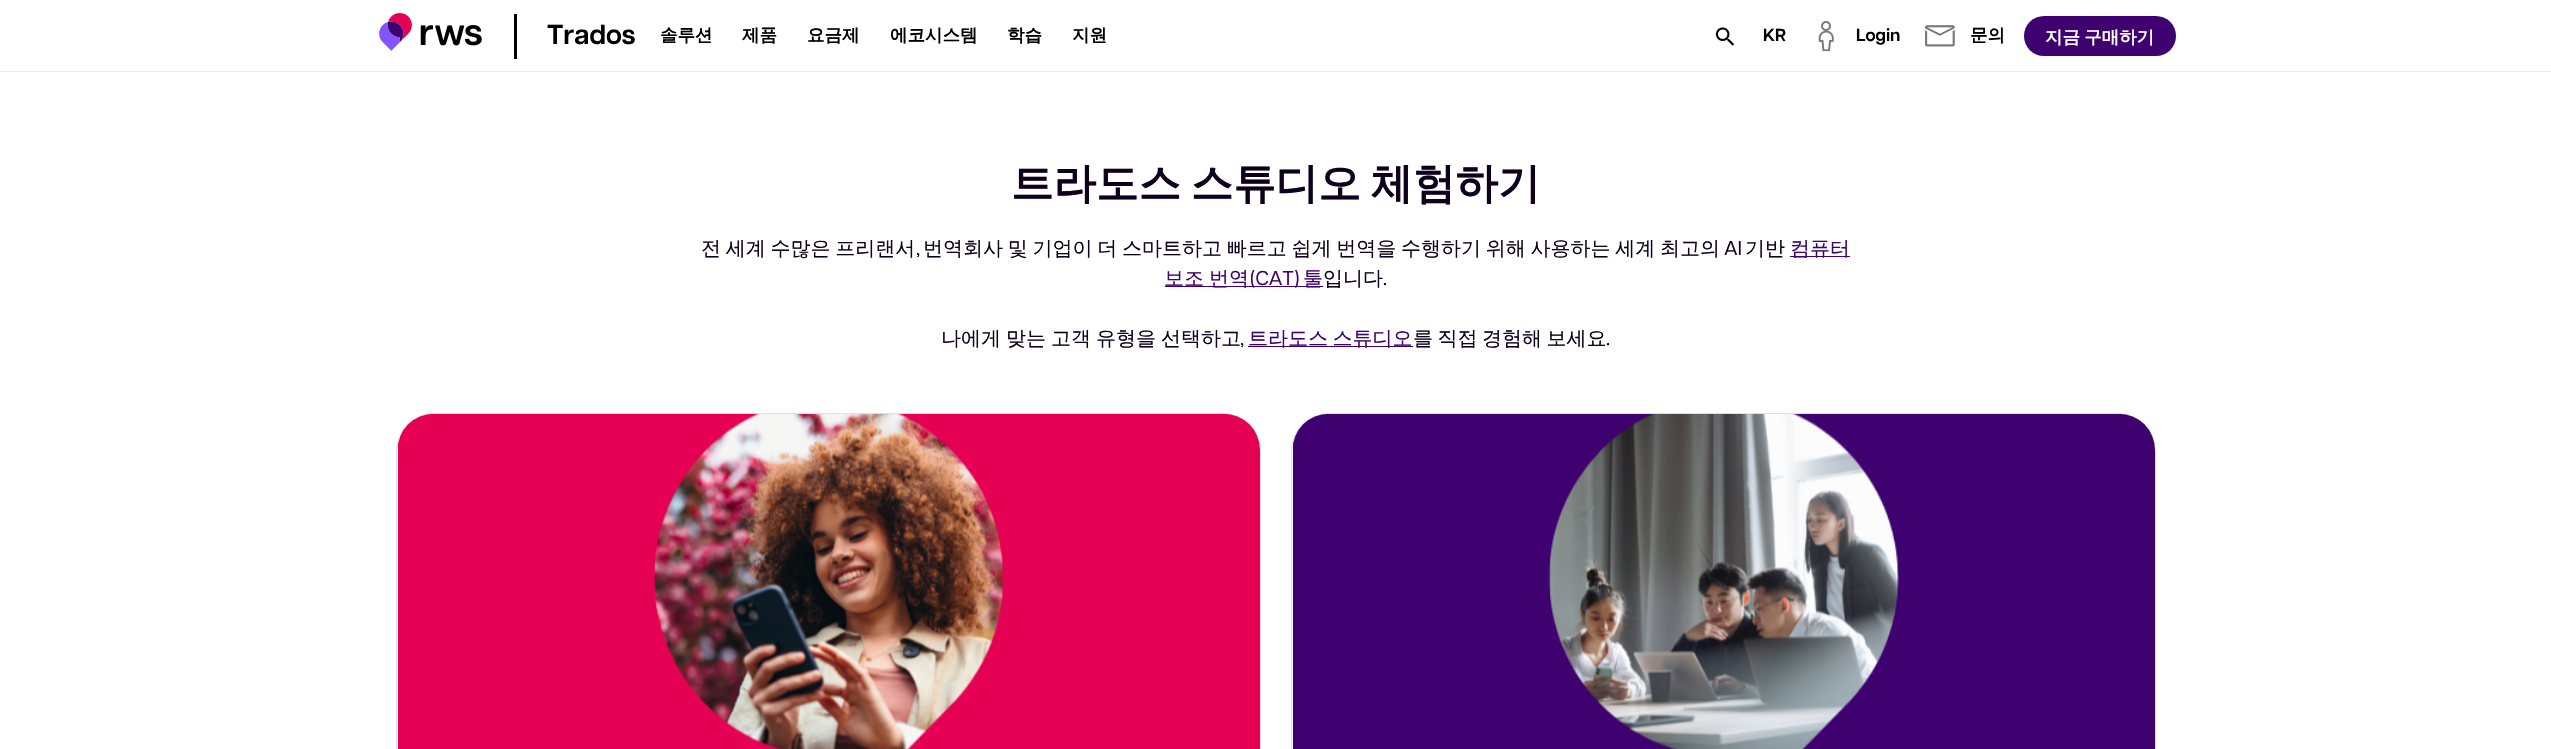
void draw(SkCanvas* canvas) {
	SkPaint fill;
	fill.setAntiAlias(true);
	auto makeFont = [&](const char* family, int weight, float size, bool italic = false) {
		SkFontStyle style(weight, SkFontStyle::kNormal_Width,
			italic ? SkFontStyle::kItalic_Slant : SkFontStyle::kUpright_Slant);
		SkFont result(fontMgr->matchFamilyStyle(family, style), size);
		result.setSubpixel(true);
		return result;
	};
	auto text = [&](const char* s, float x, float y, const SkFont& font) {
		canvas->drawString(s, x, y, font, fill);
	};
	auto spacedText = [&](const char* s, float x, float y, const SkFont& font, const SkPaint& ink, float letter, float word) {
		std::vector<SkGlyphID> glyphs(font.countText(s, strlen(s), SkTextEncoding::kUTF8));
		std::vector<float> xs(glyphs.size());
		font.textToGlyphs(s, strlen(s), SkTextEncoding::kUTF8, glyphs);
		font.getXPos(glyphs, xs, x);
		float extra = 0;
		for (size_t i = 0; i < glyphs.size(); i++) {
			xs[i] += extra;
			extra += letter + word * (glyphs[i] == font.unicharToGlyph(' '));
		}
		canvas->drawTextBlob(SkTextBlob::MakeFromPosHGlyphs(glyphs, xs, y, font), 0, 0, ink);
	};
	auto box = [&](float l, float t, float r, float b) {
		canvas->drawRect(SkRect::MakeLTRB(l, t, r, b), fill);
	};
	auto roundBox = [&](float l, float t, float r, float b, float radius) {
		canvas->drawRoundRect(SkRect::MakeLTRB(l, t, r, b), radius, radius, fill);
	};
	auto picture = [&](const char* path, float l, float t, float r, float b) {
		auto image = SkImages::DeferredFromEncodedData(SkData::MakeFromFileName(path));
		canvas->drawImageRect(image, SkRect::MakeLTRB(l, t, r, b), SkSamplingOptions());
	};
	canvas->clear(0xFFFFFFFF);
	fill.setColor(0xFFEDEDED);
	box(0, 71, 2551, 72);
	picture("image0.png", 379, 13, 482, 51);
	fill.setColor(0xFF000000);
	box(514, 14, 517, 59);
	picture("image1.png", 1715, 27, 1734, 46);
	picture("image2.png", 1818, 21, 1834, 51);
	picture("image3.png", 1925, 25, 1955, 47);
	fill.setColor(0xFF3E016F);
	roundBox(2024, 16, 2176, 56, 20);
	box(1790, 256, 1850, 257);
	box(1165, 286, 1323, 287);
	box(1248, 346, 1413, 347);
	fill.setStyle(SkPaint::kStroke_Style);
	fill.setStrokeWidth(1);
	fill.setColor(0xFFDFDFDF);
	canvas->drawRoundRect(SkRect::MakeLTRB(396.5f, 413.5f, 1260.5f, 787.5f), 37.5f, 37.5f, fill);
	picture("image4.png", 398, 414, 1260, 749);
	canvas->drawRoundRect(SkRect::MakeLTRB(1291.5f, 413.5f, 2155.5f, 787.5f), 37.5f, 37.5f, fill);
	picture("image5.png", 1293, 414, 2155, 749);
	auto font1 = makeFont("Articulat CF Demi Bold", 600, 27.5f);
	fill.setStyle(SkPaint::kFill_Style);
	fill.setColor(0xFF000000);
	text("Trados", 547, 44, font1);
	auto font2 = makeFont("WenQuanYi Zen Hei", 700, 17.5f);
	text("솔루션", 660, 41, font2);
	text("제품", 742, 41, font2);
	text("요금제", 807, 41, font2);
	text("에코시스템", 890, 41, font2);
	text("학습", 1007, 41, font2);
	text("지원", 1072, 41, font2);
	auto font3 = makeFont("Articulat CF Demi Bold", 600, 17.5f);
	text("KR", 1763, 41, font3);
	text("Login", 1856, 41, font3);
	text("문의", 1970, 41, font2);
	fill.setColor(0xFFFFFFFF);
	spacedText("지금 구매하기", 2045, 43, font2, fill, 0, -1);
	auto font4 = makeFont("WenQuanYi Zen Hei", 700, 42.5f);
	fill.setColor(0xFF0F001B);
	spacedText("트라도스 스튜디오 체험하기", 1011, 198, font4, fill, 0, -3);
	auto font5 = makeFont("WenQuanYi Zen Hei", 500, 20);
	spacedText("전 세계 수많은 프리랜서", 701, 255, font5, fill, 0, -1.25f);
	auto font6 = makeFont("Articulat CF", 400, 20);
	text(",", 916, 255, font6);
	spacedText("번역회사 및 기업이 더 스마트하고 빠르고 쉽게 번역을 수행하기 위해 사용하는 세계 최고의", 923, 255, font5, fill, 0, -1.25f);
	text("AI", 1724, 255, font6);
	text("기반", 1745, 255, font5);
	fill.setColor(0xFF3E016F);
	text("컴퓨터", 1790, 255, font5);
	spacedText("보조 번역", 1164, 285, font5, fill, 0, -1);
	text("(CAT)", 1250, 285, font6);
	text("툴", 1303, 285, font5);
	fill.setColor(0xFF0F001B);
	text("입니다", 1323, 285, font5);
	text(".", 1383, 285, font6);
	spacedText("나에게 맞는 고객 유형을 선택하고", 941, 345, font5, fill, 0, -1);
	text(",", 1240, 345, font6);
	fill.setColor(0xFF3E016F);
	spacedText("트라도스 스튜디오", 1248, 345, font5, fill, 0, -1.5f);
	fill.setColor(0xFF0F001B);
	spacedText("를 직접 경험해 보세요", 1413, 345, font5, fill, 0, -1.5f);
	text(".", 1606, 345, font6);
}
